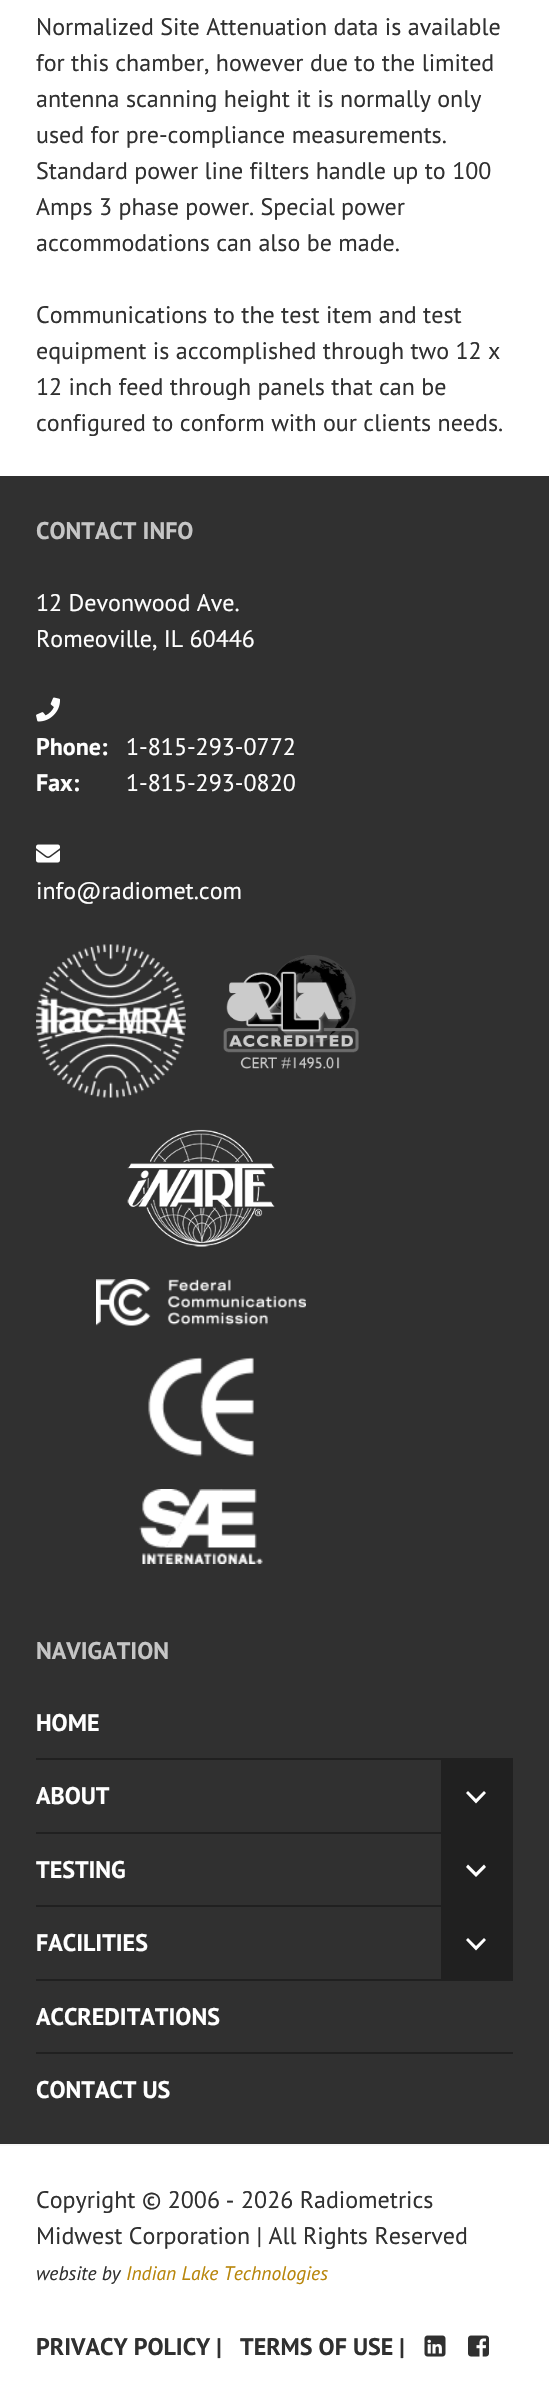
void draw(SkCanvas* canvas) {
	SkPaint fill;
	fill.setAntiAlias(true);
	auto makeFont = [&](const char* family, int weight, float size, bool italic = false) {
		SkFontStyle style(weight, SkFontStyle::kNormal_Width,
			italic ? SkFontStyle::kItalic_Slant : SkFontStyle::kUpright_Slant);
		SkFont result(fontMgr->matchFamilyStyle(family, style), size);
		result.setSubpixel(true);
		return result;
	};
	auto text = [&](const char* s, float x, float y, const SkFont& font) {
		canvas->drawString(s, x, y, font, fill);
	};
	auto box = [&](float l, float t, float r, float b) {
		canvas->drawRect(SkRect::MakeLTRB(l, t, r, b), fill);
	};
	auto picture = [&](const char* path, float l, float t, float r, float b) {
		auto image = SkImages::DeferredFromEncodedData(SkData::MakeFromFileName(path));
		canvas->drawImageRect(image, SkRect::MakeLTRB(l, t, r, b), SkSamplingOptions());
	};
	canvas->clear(0xFFFFFFFF);
	fill.setColor(0xFF303030);
	box(0, 476, 549, 2144);
	picture("image0.png", 36, 697, 60, 722);
	picture("image1.png", 36, 844, 60, 863);
	picture("image2.png", 36, 944, 186, 1098);
	picture("image3.png", 223, 955, 359, 1069);
	picture("image4.png", 127, 1129, 275, 1247);
	picture("image5.png", 96, 1279, 306, 1326);
	picture("image6.png", 148, 1357, 254, 1457);
	picture("image7.png", 139, 1489, 263, 1564);
	fill.setColor(0xFF202020);
	box(36, 1758, 513, 1760);
	box(441, 1760, 513, 1832);
	fill.setColor(0xFFFFFFFF);
	canvas->drawPath(SkPathBuilder().moveTo(484, 1791).lineTo(486, 1793).lineTo(476, 1803.5f).lineTo(466, 1793).lineTo(468, 1791).lineTo(476, 1799).close().detach(), fill);
	fill.setColor(0xFF202020);
	box(36, 1832, 513, 1834);
	box(441, 1834, 513, 1905);
	fill.setColor(0xFFFFFFFF);
	canvas->drawPath(SkPathBuilder().moveTo(484, 1864.5f).lineTo(486, 1867).lineTo(476, 1877).lineTo(466, 1867).lineTo(468, 1864.5f).lineTo(476, 1872.5f).close().detach(), fill);
	fill.setColor(0xFF202020);
	box(36, 1905, 513, 1907);
	box(441, 1907, 513, 1979);
	fill.setColor(0xFFFFFFFF);
	canvas->drawPath(SkPathBuilder().moveTo(484, 1938).lineTo(486, 1940).lineTo(476, 1950.5f).lineTo(466, 1940).lineTo(468, 1938).lineTo(476, 1946).close().detach(), fill);
	fill.setColor(0xFF202020);
	box(36, 1979, 513, 1981);
	box(36, 2052, 513, 2054);
	fill.setColor(0xFFF8F8F8);
	box(0, 2144, 549, 2146);
	picture("image8.png", 424, 2335, 446, 2357);
	picture("image9.png", 468, 2335, 489, 2357);
	auto font1 = makeFont("PT Sans", 400, 24);
	fill.setColor(0xFF303030);
	text("Normalized Site Attenuation data is available", 36, 35, font1);
	text("for this chamber, however due to the limited", 36, 71, font1);
	text("antenna scanning height it is normally only", 36, 107, font1);
	text("used for pre-compliance measurements.", 36, 143, font1);
	text("Standard power line filters handle up to 100", 36, 179, font1);
	text("Amps 3 phase power. Special power", 36, 215, font1);
	text("accommodations can also be made.", 36, 251, font1);
	text("Communications to the test item and test", 36, 323, font1);
	text("equipment is accomplished through two 12 x", 36, 359, font1);
	text("12 inch feed through panels that can be", 36, 395, font1);
	text("configured to conform with our clients needs.", 36, 431, font1);
	auto font2 = makeFont("PT Sans", 700, 24);
	fill.setColor(0xFFC5C5C5);
	text("CONTACT INFO", 36, 539, font2);
	fill.setColor(0xFFFFFFFF);
	text("12 Devonwood Ave.", 36, 611, font1);
	text("Romeoville, IL 60446", 36, 647, font1);
	text("Phone:", 36, 755, font2);
	text("1-815-293-0772", 126, 755, font1);
	text("Fax:", 36, 791, font2);
	text("1-815-293-0820", 126, 791, font1);
	text("info@radiomet.com", 36, 899, font1);
	fill.setColor(0xFFC5C5C5);
	text("NAVIGATION", 36, 1659, font2);
	fill.setColor(0xFFFFFFFF);
	text("HOME", 36, 1731, font2);
	text("ABOUT", 36, 1804, font2);
	text("TESTING", 36, 1878, font2);
	text("FACILITIES", 36, 1951, font2);
	text("ACCREDITATIONS", 36, 2025, font2);
	text("CONTACT US", 36, 2098, font2);
	fill.setColor(0xFF303030);
	text("Copyright © 2006", 36, 2208, font1);
	auto font3 = makeFont("Liberation Sans", 400, 24);
	text("‐", 226, 2208, font3);
	text("2026 Radiometrics", 241, 2208, font1);
	text("Midwest Corporation | All Rights Reserved", 36, 2244, font1);
	auto font4 = makeFont("PT Sans", 400, 19.5f, true);
	text("website by", 36, 2280, font4);
	fill.setColor(0xFFB8860B);
	text("Indian Lake Technologies", 126, 2280, font4);
	fill.setColor(0xFF303030);
	text("PRIVACY POLICY |", 36, 2355, font2);
	text("TERMS OF USE |", 240, 2355, font2);
}
